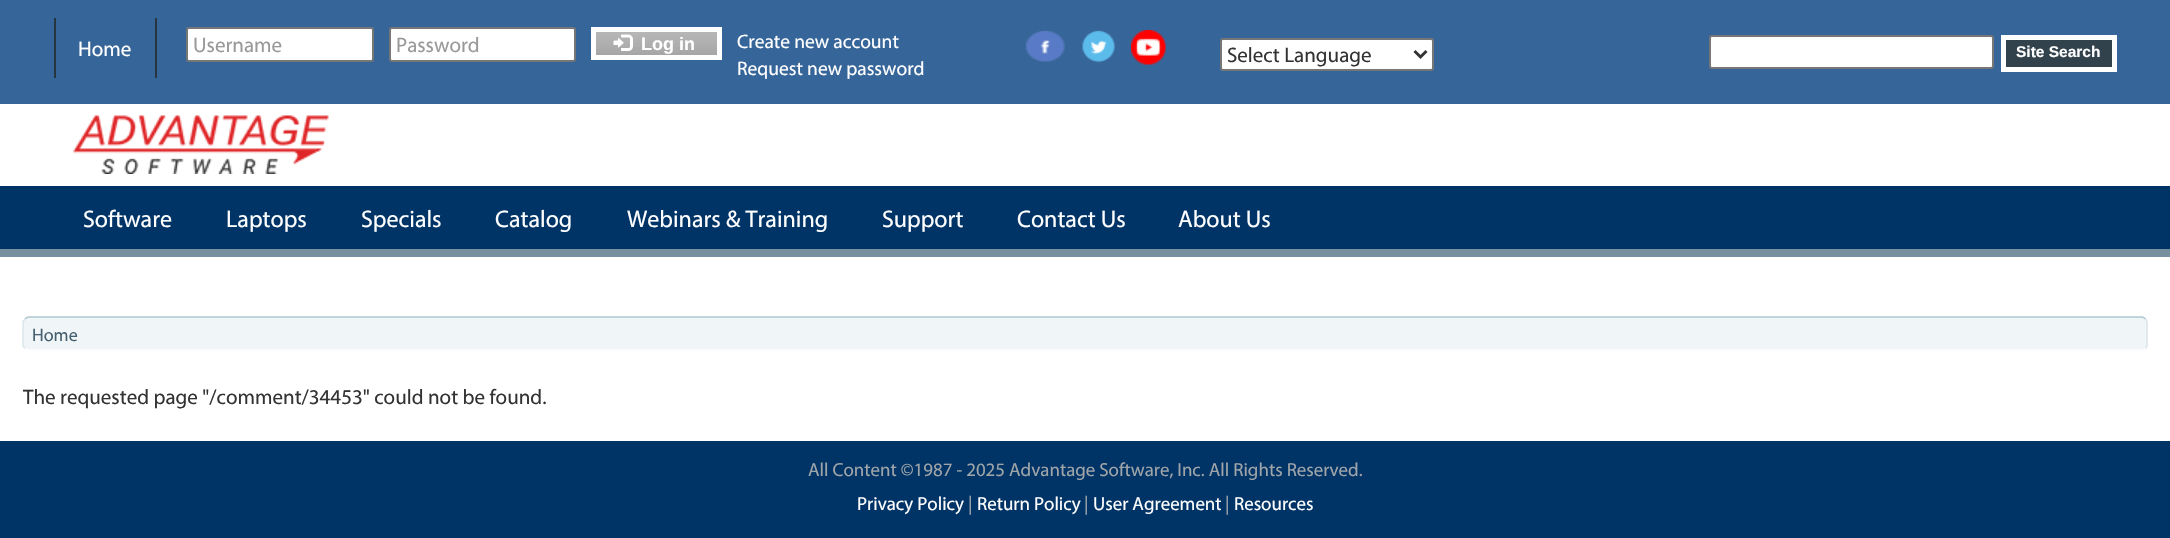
void draw(SkCanvas* canvas) {
	SkPaint fill;
	fill.setAntiAlias(true);
	auto makeFont = [&](const char* family, int weight, float size, bool italic = false) {
		SkFontStyle style(weight, SkFontStyle::kNormal_Width,
			italic ? SkFontStyle::kItalic_Slant : SkFontStyle::kUpright_Slant);
		SkFont result(fontMgr->matchFamilyStyle(family, style), size);
		result.setSubpixel(true);
		return result;
	};
	auto text = [&](const char* s, float x, float y, const SkFont& font) {
		canvas->drawString(s, x, y, font, fill);
	};
	auto box = [&](float l, float t, float r, float b) {
		canvas->drawRect(SkRect::MakeLTRB(l, t, r, b), fill);
	};
	auto roundBox = [&](float l, float t, float r, float b, float radius) {
		canvas->drawRoundRect(SkRect::MakeLTRB(l, t, r, b), radius, radius, fill);
	};
	auto picture = [&](const char* path, float l, float t, float r, float b) {
		auto image = SkImages::DeferredFromEncodedData(SkData::MakeFromFileName(path));
		canvas->drawImageRect(image, SkRect::MakeLTRB(l, t, r, b), SkSamplingOptions());
	};
	canvas->clear(0xFFFFFFFF);
	fill.setColor(0xFF366599);
	box(0, 0, 2170, 104);
	fill.setColor(0xFF27353E);
	box(155, 18, 157, 78);
	box(54, 18, 56, 78);
	fill.setColor(0xFFFFFFFF);
	canvas->drawRoundRect(SkRect::MakeLTRB(187, 28, 373, 61), 2, 2, fill);
	fill.setStyle(SkPaint::kStroke_Style);
	fill.setStrokeWidth(2);
	fill.setColor(0xFF767676);
	canvas->drawRoundRect(SkRect::MakeLTRB(187, 28, 373, 61), 2, 2, fill);
	fill.setStyle(SkPaint::kFill_Style);
	fill.setColor(0xFFFFFFFF);
	canvas->drawRoundRect(SkRect::MakeLTRB(390, 28, 575, 61), 2, 2, fill);
	fill.setStyle(SkPaint::kStroke_Style);
	fill.setColor(0xFF767676);
	canvas->drawRoundRect(SkRect::MakeLTRB(390, 28, 575, 61), 2, 2, fill);
	picture("image0.png", 596, 32, 717, 55);
	fill.setStrokeWidth(5);
	fill.setColor(0xFFFFFFFF);
	canvas->drawRect(SkRect::MakeLTRB(593.5f, 29.5f, 719.5f, 57.5f), fill);
	picture("image1.png", 613, 34, 633, 51);
	picture("image2.png", 1025, 30, 1065, 62);
	picture("image3.png", 1082, 30, 1116, 63);
	picture("image4.png", 1131, 30, 1166, 65);
	fill.setStyle(SkPaint::kFill_Style);
	canvas->drawRoundRect(SkRect::MakeLTRB(1221, 39, 1433, 70), 2, 2, fill);
	fill.setStyle(SkPaint::kStroke_Style);
	fill.setStrokeWidth(2);
	fill.setColor(0xFF767676);
	canvas->drawRoundRect(SkRect::MakeLTRB(1221, 39, 1433, 70), 2, 2, fill);
	fill.setStrokeWidth(3);
	fill.setColor(0xFF333333);
	canvas->drawPath(SkPathBuilder().moveTo(1414.5f, 51).lineTo(1420.5f, 57).lineTo(1426.5f, 51).detach(), fill);
	fill.setStyle(SkPaint::kFill_Style);
	fill.setColor(0xFFFFFFFF);
	canvas->drawRoundRect(SkRect::MakeLTRB(1710, 36, 1993, 68), 2, 2, fill);
	fill.setStyle(SkPaint::kStroke_Style);
	fill.setStrokeWidth(2);
	fill.setColor(0xFF767676);
	canvas->drawRoundRect(SkRect::MakeLTRB(1710, 36, 1993, 68), 2, 2, fill);
	fill.setStyle(SkPaint::kFill_Style);
	fill.setColor(0xFF32424C);
	canvas->drawRect(SkRect::MakeLTRB(2003.5f, 37.5f, 2114.5f, 69.5f), fill);
	fill.setStyle(SkPaint::kStroke_Style);
	fill.setStrokeWidth(5);
	fill.setColor(0xFFFFFFFF);
	canvas->drawRect(SkRect::MakeLTRB(2003.5f, 37.5f, 2114.5f, 69.5f), fill);
	picture("image5.png", 73, 115, 329, 174);
	fill.setStyle(SkPaint::kFill_Style);
	fill.setColor(0xFF003366);
	box(0, 186, 2170, 249);
	fill.setColor(0xFF77909F);
	box(0, 249, 2170, 257);
	fill.setColor(0xFFF0F5F7);
	roundBox(23, 317, 2148, 351, 6);
	fill.setStyle(SkPaint::kStroke_Style);
	fill.setStrokeWidth(1.5f);
	fill.setColor(0xFFB0C7D0);
	canvas->drawPath(SkPathBuilder().moveTo(25, 319).cubicTo(26, 318, 27, 317, 28.5f, 317).lineTo(2142, 317).cubicTo(2143.5f, 317, 2144.5f, 318, 2145.5f, 319).detach(), fill);
	fill.setColor(0xFFDBE7EC);
	canvas->drawPath(SkPathBuilder().moveTo(2145.5f, 319).cubicTo(2146.5f, 320, 2147, 321, 2147, 322.5f).lineTo(2147, 345).cubicTo(2147, 346.5f, 2146.5f, 347.5f, 2145.5f, 348.5f).detach(), fill);
	fill.setColor(0xFFFFFFFF);
	canvas->drawPath(SkPathBuilder().moveTo(2145.5f, 348.5f).cubicTo(2144.5f, 349.5f, 2143.5f, 350, 2142, 350).lineTo(28.5f, 350).cubicTo(27, 350, 26, 349.5f, 25, 348.5f).detach(), fill);
	fill.setColor(0xFFDBE7EC);
	canvas->drawPath(SkPathBuilder().moveTo(25, 348.5f).cubicTo(24, 347.5f, 23, 346.5f, 23, 345).lineTo(23, 322.5f).cubicTo(23, 321, 24, 320, 25, 319).detach(), fill);
	fill.setStyle(SkPaint::kFill_Style);
	fill.setColor(0xFF003366);
	box(0, 441, 2170, 538);
	auto font1 = makeFont("Myriad", 400, 21);
	fill.setColor(0xFFFFFFFF);
	text("Home", 78, 56, font1);
	fill.setColor(0xFF999999);
	text("Username", 193, 52, font1);
	text("Password", 396, 52, font1);
	auto font2 = makeFont("Liberation Sans", 700, 18);
	fill.setColor(0xFFFFFFFF);
	text("Log in", 641, 50, font2);
	auto font3 = makeFont("Myriad", 400, 19.5f);
	text("Create new account", 737, 48, font3);
	text("Request new password", 737, 75, font3);
	fill.setColor(0xFF333333);
	text("Select Language", 1227, 62, font1);
	auto font4 = makeFont("Liberation Sans", 700, 15.5f);
	fill.setColor(0xFFFFFFFF);
	text("Site Search", 2016, 57, font4);
	auto font5 = makeFont("Myriad", 400, 24);
	text("Software", 83, 227, font5);
	text("Laptops", 226, 227, font5);
	text("Specials", 361, 227, font5);
	text("Catalog", 495, 227, font5);
	text("Webinars & Training", 627, 227, font5);
	text("Support", 882, 227, font5);
	text("Contact Us", 1017, 227, font5);
	text("About Us", 1178, 227, font5);
	auto font6 = makeFont("Myriad", 400, 18);
	fill.setColor(0xFF455F6F);
	text("Home", 32, 341, font6);
	fill.setColor(0xFF333333);
	text("The requested page \"/comment/34453\" could not be found.", 23, 404, font1);
	auto font7 = makeFont("Myriad", 400, 18.9f);
	fill.setColor(0xFF9FA5A9);
	text("All Content ©1987 - 2025 Advantage Software, Inc. All Rights Reserved.", 808, 476, font7);
	fill.setColor(0xFFFFFFFF);
	text("Privacy Policy", 857, 510, font7);
	fill.setColor(0xFF9FA5A9);
	text("|", 968, 510, font7);
	fill.setColor(0xFFFFFFFF);
	text("Return Policy", 977, 510, font7);
	fill.setColor(0xFF9FA5A9);
	text("|", 1084, 510, font7);
	fill.setColor(0xFFFFFFFF);
	text("User Agreement", 1093, 510, font7);
	fill.setColor(0xFF9FA5A9);
	text("|", 1225, 510, font7);
	fill.setColor(0xFFFFFFFF);
	text("Resources", 1234, 510, font7);
}
